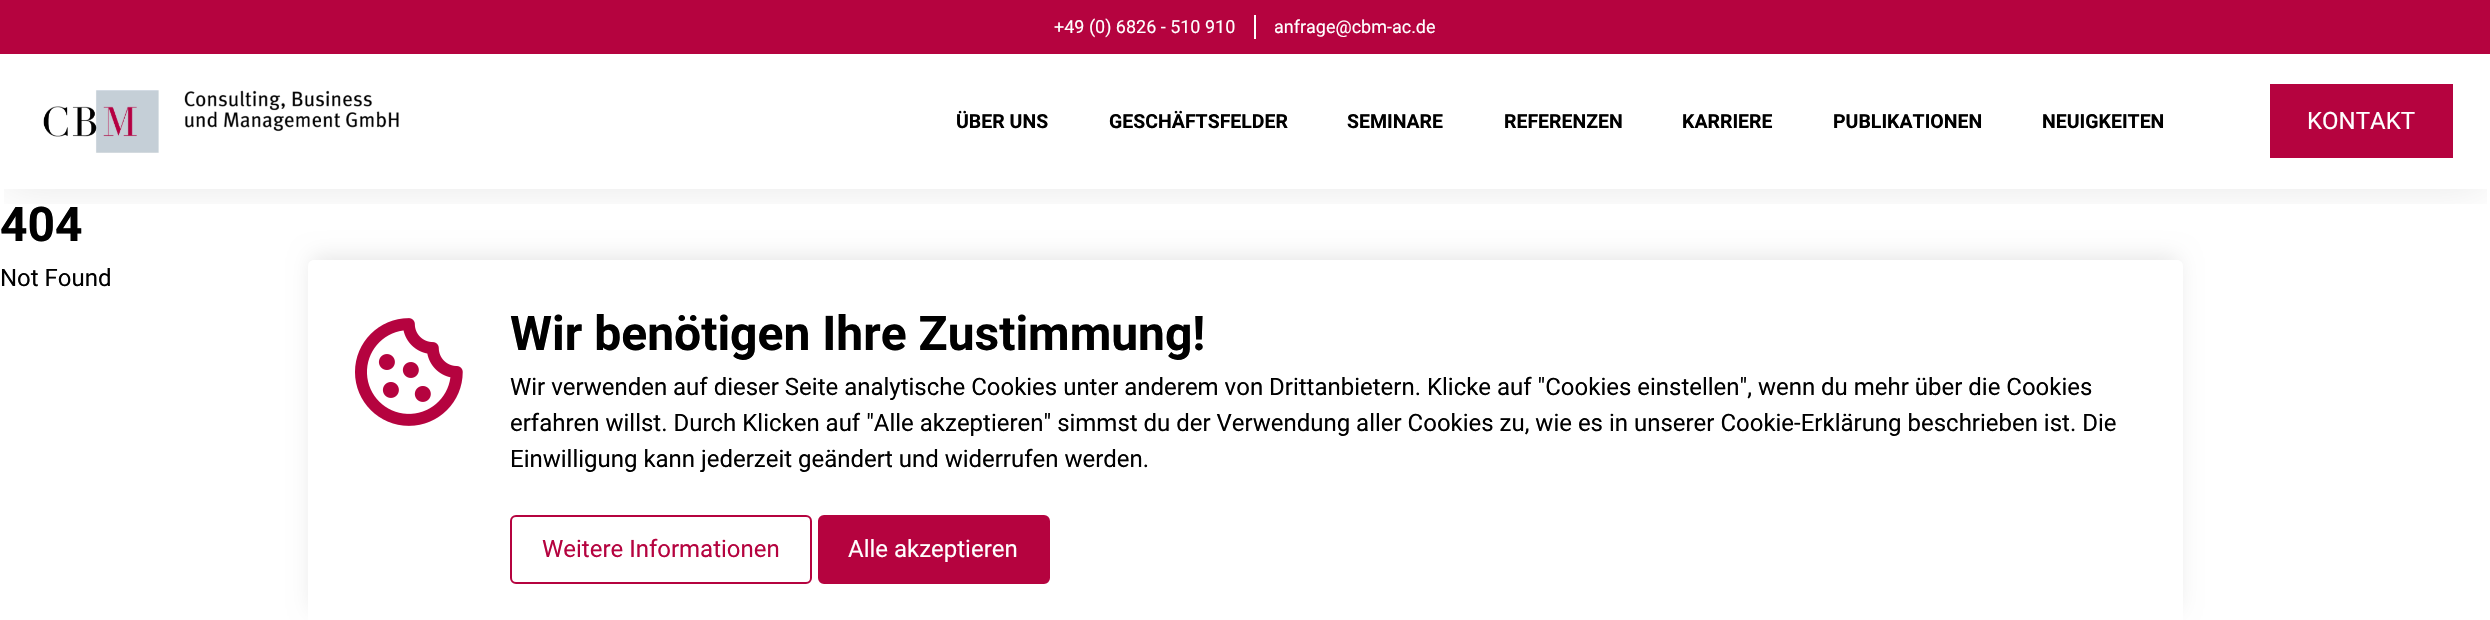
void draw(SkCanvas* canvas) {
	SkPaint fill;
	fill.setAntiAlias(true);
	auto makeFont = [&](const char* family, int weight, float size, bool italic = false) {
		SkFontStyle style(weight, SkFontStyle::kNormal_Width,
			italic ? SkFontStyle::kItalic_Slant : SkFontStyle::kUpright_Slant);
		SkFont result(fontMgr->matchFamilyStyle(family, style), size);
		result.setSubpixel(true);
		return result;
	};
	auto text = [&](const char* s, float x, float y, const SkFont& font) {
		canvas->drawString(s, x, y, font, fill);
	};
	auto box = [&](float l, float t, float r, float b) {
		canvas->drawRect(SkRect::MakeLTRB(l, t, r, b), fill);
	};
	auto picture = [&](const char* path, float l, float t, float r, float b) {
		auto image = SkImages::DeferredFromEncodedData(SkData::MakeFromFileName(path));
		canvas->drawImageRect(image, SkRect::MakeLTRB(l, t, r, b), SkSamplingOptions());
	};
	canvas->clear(0xFFFFFFFF);
	canvas->save();
	canvas->clipRect(SkRect::MakeLTRB(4, 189, 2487, 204));
	fill.setColor(0x1A000000);
	fill.setMaskFilter(SkMaskFilter::MakeBlur(kNormal_SkBlurStyle, 22));
	canvas->drawRect(SkRect::MakeLTRB(5, 5, 2486, 185), fill);
	fill.setMaskFilter(nullptr);
	canvas->restore();
	fill.setColor(0xFFB5033F);
	box(0, 0, 2490, 54);
	fill.setColor(0xFFFFFFFF);
	box(1254, 15, 1256, 39);
	picture("image0.png", 43, 90, 399, 153);
	fill.setColor(0xFFB5033F);
	box(2270, 84, 2453, 158);
	fill.setColor(0x1A000000);
	fill.setMaskFilter(SkMaskFilter::MakeBlur(kNormal_SkBlurStyle, 11));
	canvas->drawRoundRect(SkRect::MakeLTRB(312, 257, 2178, 609), 1.5f, 1.5f, fill);
	fill.setMaskFilter(nullptr);
	fill.setColor(0xFFFFFFFF);
	canvas->drawPath(SkPathBuilder().moveTo(314, 260).lineTo(2177, 260).cubicTo(2180.5f, 260, 2183, 262.5f, 2183, 266).lineTo(2183, 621).lineTo(308, 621).lineTo(308, 266).cubicTo(308, 262.5f, 310.5f, 260, 314, 260).close().detach(), fill);
	picture("image1.png", 355, 318, 463, 426);
	fill.setStyle(SkPaint::kStroke_Style);
	fill.setStrokeWidth(2);
	fill.setColor(0xFFB5033F);
	canvas->drawRoundRect(SkRect::MakeLTRB(511, 516, 811, 583), 5, 5, fill);
	fill.setStyle(SkPaint::kFill_Style);
	canvas->drawRoundRect(SkRect::MakeLTRB(819, 516, 1049, 583), 5, 5, fill);
	fill.setStyle(SkPaint::kStroke_Style);
	canvas->drawRoundRect(SkRect::MakeLTRB(819, 516, 1049, 583), 5, 5, fill);
	auto font1 = makeFont("Roboto", 400, 18);
	fill.setStyle(SkPaint::kFill_Style);
	fill.setColor(0xFFFFFFFF);
	text("+49 (0) 6826 - 510 910", 1054, 33, font1);
	text("anfrage@cbm-ac.de", 1274, 33, font1);
	auto font2 = makeFont("Roboto", 700, 19.5f);
	fill.setColor(0xFF000000);
	text("ÜBER UNS", 956, 128, font2);
	text("GESCHÄFTSFELDER", 1109, 128, font2);
	text("SEMINARE", 1347, 128, font2);
	text("REFERENZEN", 1504, 128, font2);
	text("KARRIERE", 1682, 128, font2);
	text("PUBLIKATIONEN", 1833, 128, font2);
	text("NEUIGKEITEN", 2042, 128, font2);
	auto font3 = makeFont("Roboto", 400, 24);
	fill.setColor(0xFFFFFFFF);
	text("KONTAKT", 2307, 129, font3);
	auto font4 = makeFont("Roboto", 700, 48);
	fill.setColor(0xFF000000);
	text("404", 0, 241, font4);
	text("Not Found", 0, 286, font3);
	text("Wir benötigen Ihre Zustimmung!", 510, 350, font4);
	text("Wir verwenden auf dieser Seite analytische Cookies unter anderem von Drittanbietern. Klicke auf \"Cookies einstellen\", wenn du mehr über die Cookies", 510, 395, font3);
	text("erfahren willst. Durch Klicken auf \"Alle akzeptieren\" simmst du der Verwendung aller Cookies zu, wie es in unserer Cookie-Erklärung beschrieben ist. Die", 510, 431, font3);
	text("Einwilligung kann jederzeit geändert und widerrufen werden.", 510, 467, font3);
	fill.setColor(0xFFB5033F);
	text("Weitere Informationen", 542, 557, font3);
	fill.setColor(0xFFFFFFFF);
	text("Alle akzeptieren", 848, 557, font3);
}
